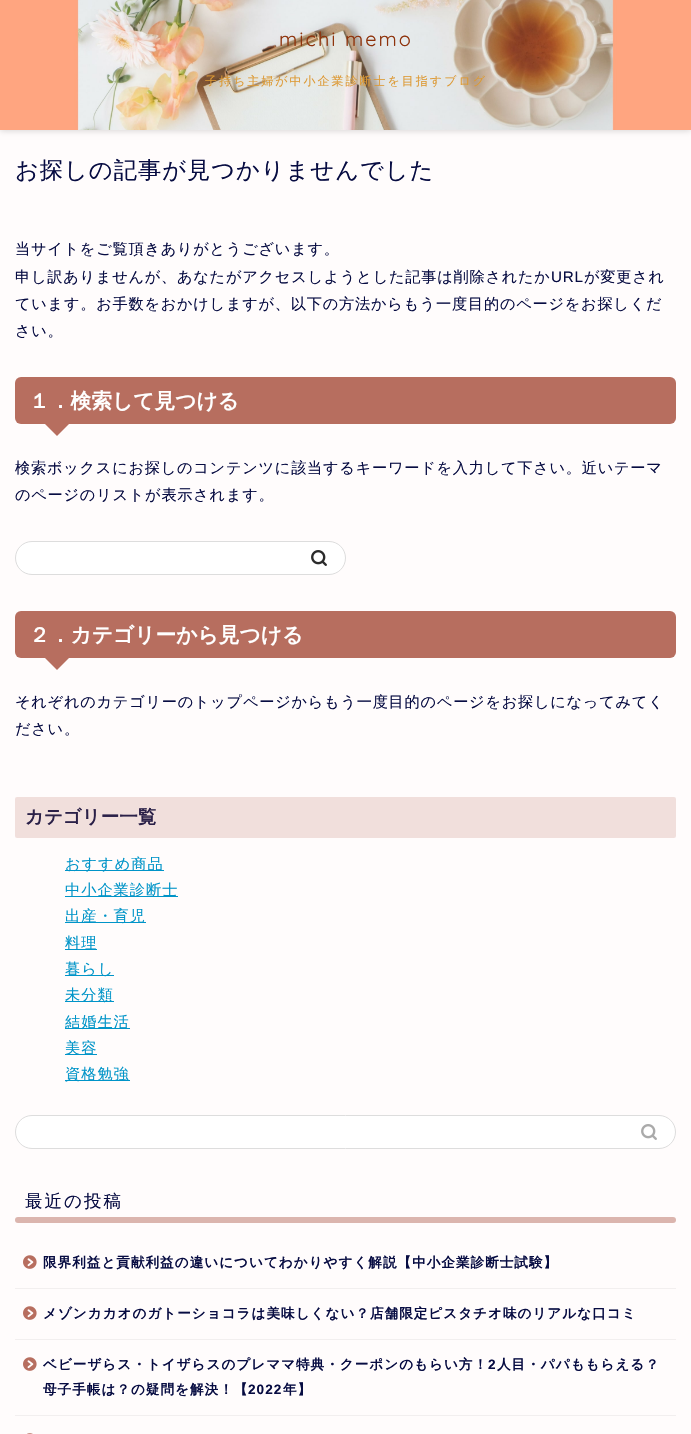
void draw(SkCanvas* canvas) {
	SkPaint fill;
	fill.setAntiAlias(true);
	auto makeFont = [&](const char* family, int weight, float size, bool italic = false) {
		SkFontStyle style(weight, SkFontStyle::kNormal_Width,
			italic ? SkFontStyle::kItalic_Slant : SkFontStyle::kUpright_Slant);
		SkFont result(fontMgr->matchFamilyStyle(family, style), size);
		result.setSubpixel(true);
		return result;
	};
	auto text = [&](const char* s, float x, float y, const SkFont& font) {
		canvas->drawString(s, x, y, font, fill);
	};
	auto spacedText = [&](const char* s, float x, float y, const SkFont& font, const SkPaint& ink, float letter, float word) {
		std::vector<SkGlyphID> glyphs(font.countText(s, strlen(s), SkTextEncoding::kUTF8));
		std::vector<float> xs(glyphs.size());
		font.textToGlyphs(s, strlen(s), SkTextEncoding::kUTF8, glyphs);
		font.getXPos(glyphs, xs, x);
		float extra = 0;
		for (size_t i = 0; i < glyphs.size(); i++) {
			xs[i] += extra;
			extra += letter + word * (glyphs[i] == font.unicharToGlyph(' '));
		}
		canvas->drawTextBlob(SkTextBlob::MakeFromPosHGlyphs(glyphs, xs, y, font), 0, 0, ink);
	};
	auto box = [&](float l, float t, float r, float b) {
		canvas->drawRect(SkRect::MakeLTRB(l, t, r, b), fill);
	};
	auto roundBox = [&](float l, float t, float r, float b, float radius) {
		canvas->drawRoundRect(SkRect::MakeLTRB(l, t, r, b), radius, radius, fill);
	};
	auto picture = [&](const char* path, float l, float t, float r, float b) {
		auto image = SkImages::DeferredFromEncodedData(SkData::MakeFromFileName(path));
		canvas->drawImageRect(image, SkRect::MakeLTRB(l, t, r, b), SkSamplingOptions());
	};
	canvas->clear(0xFFFFFCFC);
	fill.setColor(0x26000000);
	fill.setMaskFilter(SkMaskFilter::MakeBlur(kNormal_SkBlurStyle, 3));
	canvas->drawRect(SkRect::MakeLTRB(0, -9, 691, 131), fill);
	fill.setMaskFilter(nullptr);
	picture("image0.png", 0, 0, 691, 130);
	fill.setColor(0xFFB76E5F);
	roundBox(15, 377, 676, 424, 6);
	canvas->drawPath(SkPathBuilder().moveTo(45, 424).lineTo(69, 424).lineTo(57, 436).close().detach(), fill);
	fill.setColor(0xFFFFFFFF);
	canvas->drawRoundRect(SkRect::MakeLTRB(15.5f, 541.5f, 345.5f, 574.5f), 16.5f, 16.5f, fill);
	fill.setStyle(SkPaint::kStroke_Style);
	fill.setStrokeWidth(1);
	fill.setColor(0xFFDDDDDD);
	canvas->drawRoundRect(SkRect::MakeLTRB(15.5f, 541.5f, 345.5f, 574.5f), 16.5f, 16.5f, fill);
	picture("image1.png", 311, 550, 327, 566);
	fill.setStyle(SkPaint::kFill_Style);
	fill.setColor(0xFFB76E5F);
	roundBox(15, 611, 676, 658, 6);
	canvas->drawPath(SkPathBuilder().moveTo(45, 658).lineTo(69, 658).lineTo(57, 670).close().detach(), fill);
	fill.setColor(0xFF0094C8);
	box(65, 870, 164, 871);
	box(65, 896, 178, 897);
	box(65, 922, 146, 923);
	box(65, 949, 97, 950);
	box(65, 975, 114, 976);
	box(65, 1001, 114, 1002);
	box(65, 1028, 130, 1029);
	box(65, 1054, 97, 1055);
	box(65, 1080, 130, 1081);
	fill.setColor(0xFFFFFFFF);
	canvas->drawRoundRect(SkRect::MakeLTRB(15.5f, 1115.5f, 675.5f, 1148.5f), 16.5f, 16.5f, fill);
	fill.setStyle(SkPaint::kStroke_Style);
	fill.setColor(0xFFDDDDDD);
	canvas->drawRoundRect(SkRect::MakeLTRB(15.5f, 1115.5f, 675.5f, 1148.5f), 16.5f, 16.5f, fill);
	picture("image2.png", 641, 1124, 657, 1140);
	fill.setStyle(SkPaint::kFill_Style);
	fill.setColor(0xFFDBB5AE);
	roundBox(15, 1217, 676, 1223, 3);
	fill.setColor(0xFFF2EFEF);
	box(15, 1288, 676, 1289);
	picture("image3.png", 23, 1255, 37, 1269);
	box(15, 1339, 676, 1340);
	picture("image3.png", 23, 1306, 37, 1320);
	box(15, 1415, 676, 1416);
	picture("image3.png", 23, 1357, 37, 1371);
	picture("image4.png", 27, 1433, 33, 1434);
	auto font1 = makeFont("Quicksand", 300, 20);
	fill.setColor(0xFF8E320B);
	spacedText("michi memo", 279, 46, font1, fill, 2, 0);
	auto font2 = makeFont("WenQuanYi Zen Hei", 500, 12);
	fill.setColor(0xFFDD9933);
	spacedText("子持ち主婦が中小企業診断士を目指すブログ", 205, 85, font2, fill, 2, 0);
	auto font3 = makeFont("WenQuanYi Zen Hei", 500, 23.25f);
	fill.setColor(0xFF070C42);
	spacedText("お探しの記事が見つかりませんでした", 15, 178, font3, fill, 1, 0);
	auto font4 = makeFont("WenQuanYi Zen Hei", 500, 15.2f);
	spacedText("当サイトをご覧頂きありがとうございます。", 15, 254, font4, fill, 0.75f, 0);
	spacedText("申し訳ありませんが、あなたがアクセスしようとした記事は削除されたか", 15, 282, font4, fill, 0.75f, 0);
	auto font5 = makeFont("Liberation Sans", 400, 15.2f);
	spacedText("URL", 551, 282, font5, fill, 0.75f, 0);
	spacedText("が変更され", 584, 282, font4, fill, 0.75f, 0);
	spacedText("ています。お手数をおかけしますが、以下の方法からもう一度目的のページをお探しくだ", 15, 309, font4, fill, 0.75f, 0);
	spacedText("さい。", 15, 336, font4, fill, 0.75f, 0);
	auto font6 = makeFont("WenQuanYi Zen Hei", 700, 20.75f);
	fill.setColor(0xFFFFFFFF);
	text("１．検索して見つける", 29, 408, font6);
	fill.setColor(0xFF070C42);
	spacedText("検索ボックスにお探しのコンテンツに該当するキーワードを入力して下さい。近いテーマ", 15, 473, font4, fill, 0.75f, 0);
	spacedText("のページのリストが表示されます。", 15, 500, font4, fill, 0.75f, 0);
	fill.setColor(0xFFFFFFFF);
	text("２．カテゴリーから見つける", 29, 642, font6);
	fill.setColor(0xFF070C42);
	spacedText("それぞれのカテゴリーのトップページからもう一度目的のページをお探しになってみてく", 15, 707, font4, fill, 0.75f, 0);
	spacedText("ださい。", 15, 734, font4, fill, 0.75f, 0);
	auto font7 = makeFont("WenQuanYi Zen Hei", 700, 18.5f);
	text("カテゴリー一覧", 25, 823, font7);
	fill.setColor(0x33B76E5F);
	roundBox(15, 797, 676, 838, 2);
	fill.setColor(0xFF0094C8);
	spacedText("おすすめ商品", 65, 869, font4, fill, 1, 0);
	spacedText("中小企業診断士", 65, 895, font4, fill, 1, 0);
	spacedText("出産・育児", 65, 921, font4, fill, 1, 0);
	spacedText("料理", 65, 948, font4, fill, 1, 0);
	spacedText("暮らし", 65, 974, font4, fill, 1, 0);
	spacedText("未分類", 65, 1000, font4, fill, 1, 0);
	spacedText("結婚生活", 65, 1027, font4, fill, 1, 0);
	spacedText("美容", 65, 1053, font4, fill, 1, 0);
	spacedText("資格勉強", 65, 1079, font4, fill, 1, 0);
	auto font8 = makeFont("WenQuanYi Zen Hei", 500, 17.5f);
	fill.setColor(0xFF070C42);
	spacedText("最近の投稿", 25, 1207, font8, fill, 2, 0);
	auto font9 = makeFont("WenQuanYi Zen Hei", 700, 13.6f);
	spacedText("限界利益と貢献利益の違いについてわかりやすく解説【中小企業診断士試験】", 43, 1267, font9, fill, 1, 0);
	spacedText("メゾンカカオのガトーショコラは美味しくない？店舗限定ピスタチオ味のリアルな口コミ", 43, 1318, font9, fill, 1, 0);
	spacedText("ベビーザらス・トイザらスのプレママ特典・クーポンのもらい方！", 43, 1369, font9, fill, 1, 0);
	auto font10 = makeFont("Liberation Sans", 700, 13.6f);
	spacedText("2", 488, 1369, font10, fill, 1, 0);
	spacedText("人目・パパももらえる？", 497, 1369, font9, fill, 1, 0);
	spacedText("母子手帳は？の疑問を解決！【", 43, 1394, font9, fill, 1, 0);
	spacedText("2022", 248, 1394, font10, fill, 1, 0);
	spacedText("年】", 283, 1394, font9, fill, 1, 0);
}
